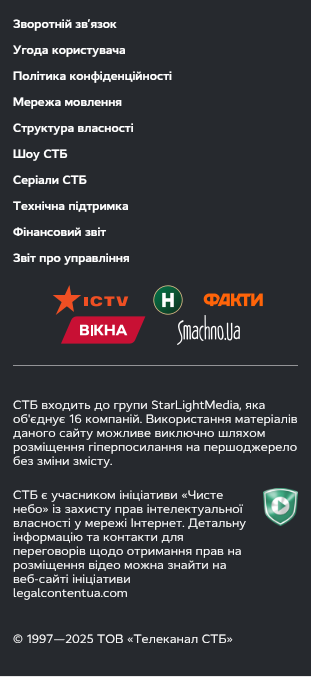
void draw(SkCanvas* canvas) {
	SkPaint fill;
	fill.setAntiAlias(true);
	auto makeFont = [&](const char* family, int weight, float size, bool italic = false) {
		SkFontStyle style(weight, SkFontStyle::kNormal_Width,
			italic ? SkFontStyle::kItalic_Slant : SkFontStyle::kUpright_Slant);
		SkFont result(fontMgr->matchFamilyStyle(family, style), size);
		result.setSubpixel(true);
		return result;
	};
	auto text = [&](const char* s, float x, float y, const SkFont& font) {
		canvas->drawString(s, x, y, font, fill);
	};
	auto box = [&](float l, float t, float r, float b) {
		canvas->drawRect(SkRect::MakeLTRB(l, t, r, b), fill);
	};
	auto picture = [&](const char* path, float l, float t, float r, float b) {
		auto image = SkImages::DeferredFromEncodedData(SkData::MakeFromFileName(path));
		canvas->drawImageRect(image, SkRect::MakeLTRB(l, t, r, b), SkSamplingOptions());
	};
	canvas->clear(0xFFE4E4E5);
	fill.setColor(0xFF26292E);
	box(0, 0, 311, 676);
	picture("image0.png", 52, 285, 129, 315);
	picture("image1.png", 153, 285, 183, 315);
	picture("image2.png", 203, 293, 263, 307);
	picture("image3.png", 61, 316, 146, 344);
	picture("image4.png", 177, 315, 240, 345);
	fill.setColor(0xFF939497);
	box(13, 365, 298, 366);
	picture("image5.png", 263, 488, 298, 526);
	auto font1 = makeFont("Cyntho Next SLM", 700, 12);
	fill.setColor(0xFFFFFFFF);
	text("Зворотній зв’язок", 13, 28, font1);
	text("Угода користувача", 13, 54, font1);
	text("Політика конфіденційності", 13, 80, font1);
	text("Мережа мовлення", 13, 106, font1);
	text("Структура власності", 13, 132, font1);
	text("Шоу СТБ", 13, 158, font1);
	text("Серіали СТБ", 13, 184, font1);
	text("Технічна підтримка", 13, 210, font1);
	text("Фінансовий звіт", 13, 236, font1);
	text("Звіт про управління", 13, 262, font1);
	auto font2 = makeFont("Cyntho Next SLM", 400, 12);
	text("СТБ входить до групи StarLightMedia, яка", 13, 409, font2);
	text("об'єднує 16 компаній. Використання матеріалів", 13, 423, font2);
	text("даного сайту можливе виключно шляхом", 13, 437, font2);
	text("розміщення гіперпосилання на першоджерело", 13, 451, font2);
	text("без зміни змісту.", 13, 465, font2);
	text("СТБ є учасником ініціативи «Чисте", 13, 499, font2);
	text("небо» із захисту прав інтелектуальної", 13, 513, font2);
	text("власності у мережі Інтернет. Детальну", 13, 527, font2);
	text("інформацію та контакти для", 13, 541, font2);
	text("переговорів щодо отримання прав на", 13, 555, font2);
	text("розміщення відео можна знайти на", 13, 569, font2);
	text("веб-сайті ініціативи", 13, 583, font2);
	text("legalcontentua.com", 13, 597, font2);
	text("© 1997—2025 ТОВ «Телеканал СТБ»", 13, 643, font2);
}
